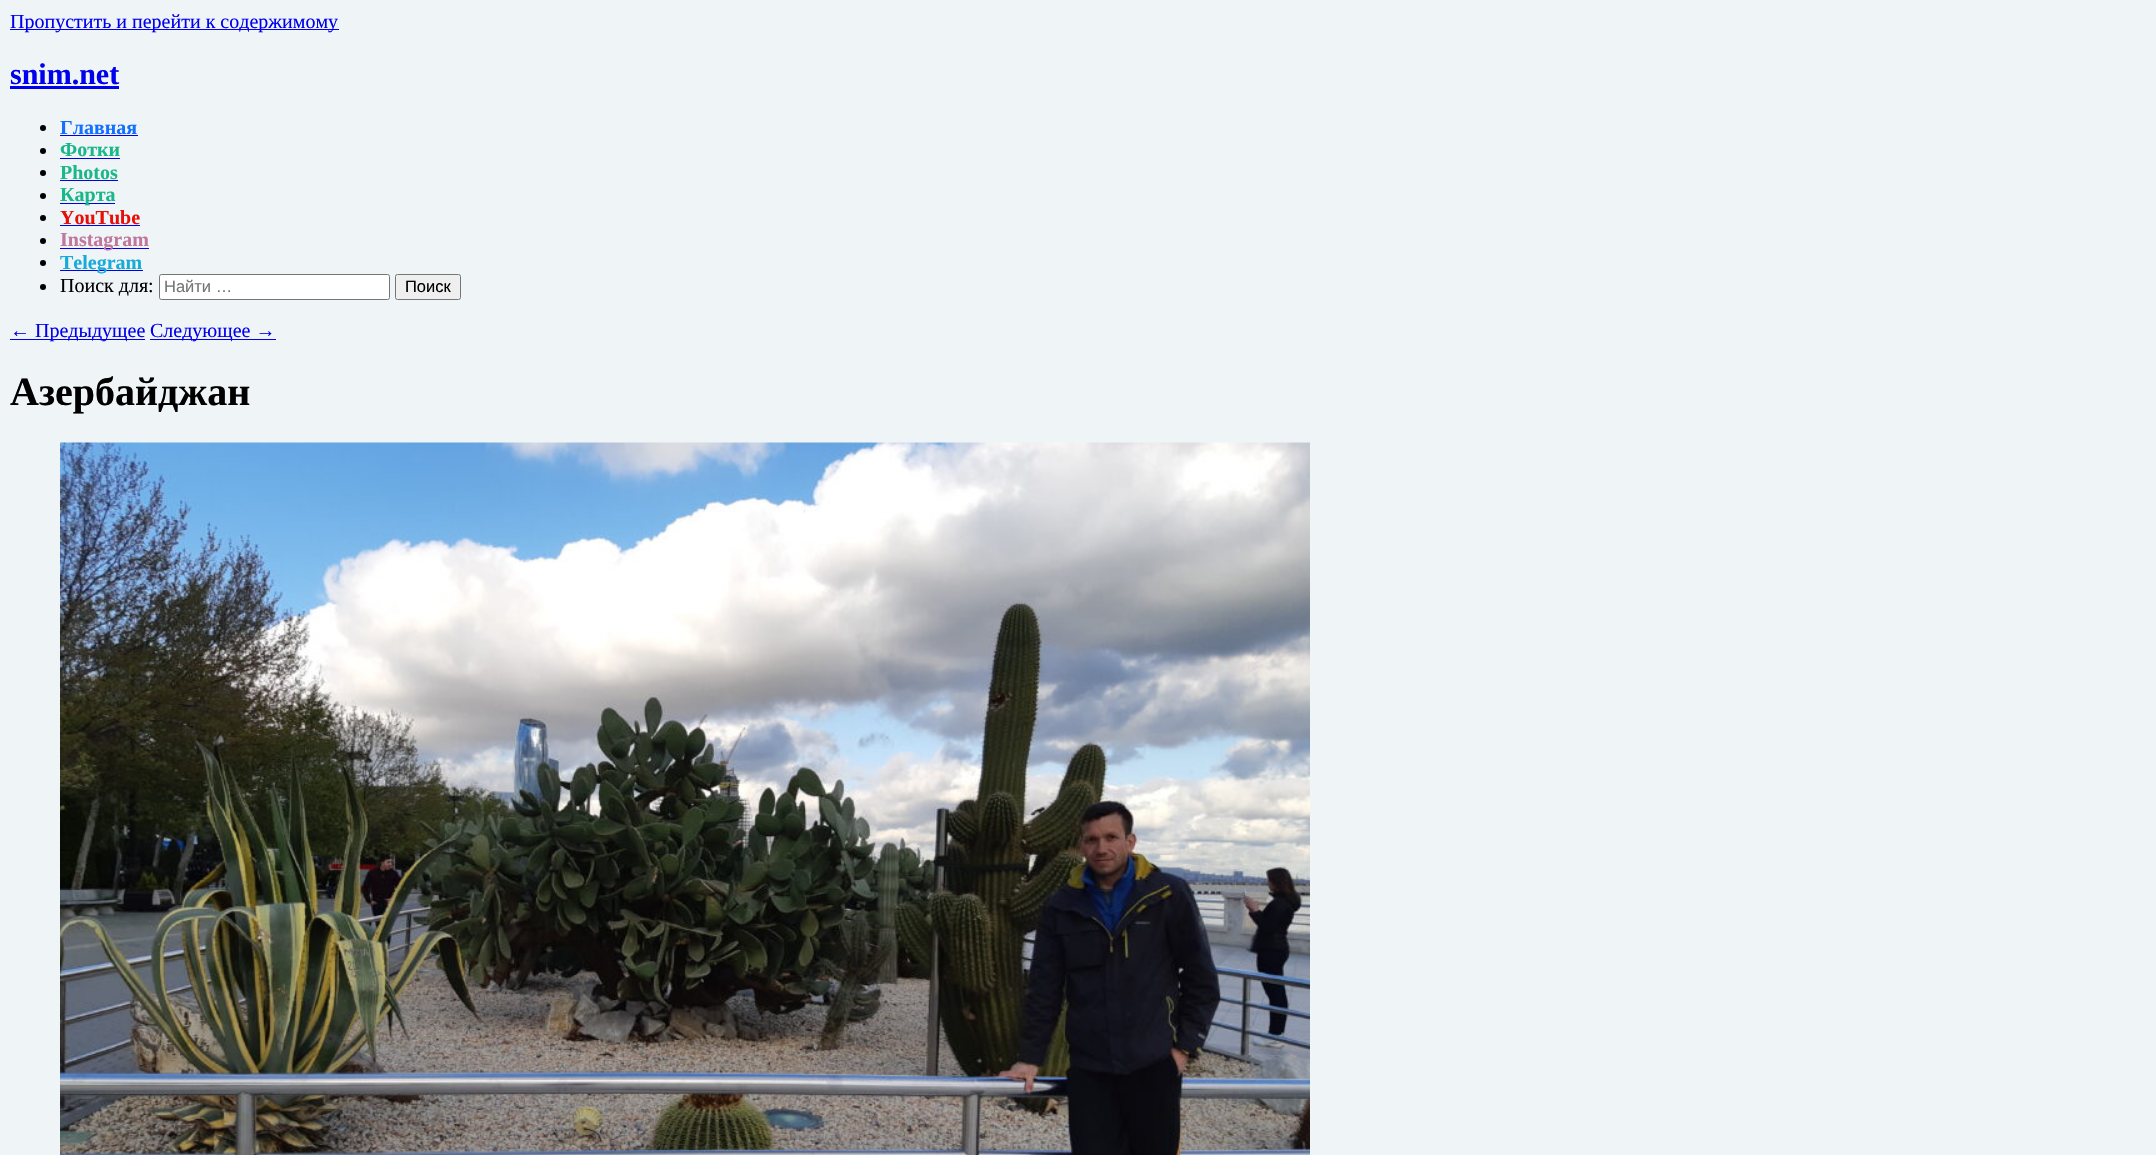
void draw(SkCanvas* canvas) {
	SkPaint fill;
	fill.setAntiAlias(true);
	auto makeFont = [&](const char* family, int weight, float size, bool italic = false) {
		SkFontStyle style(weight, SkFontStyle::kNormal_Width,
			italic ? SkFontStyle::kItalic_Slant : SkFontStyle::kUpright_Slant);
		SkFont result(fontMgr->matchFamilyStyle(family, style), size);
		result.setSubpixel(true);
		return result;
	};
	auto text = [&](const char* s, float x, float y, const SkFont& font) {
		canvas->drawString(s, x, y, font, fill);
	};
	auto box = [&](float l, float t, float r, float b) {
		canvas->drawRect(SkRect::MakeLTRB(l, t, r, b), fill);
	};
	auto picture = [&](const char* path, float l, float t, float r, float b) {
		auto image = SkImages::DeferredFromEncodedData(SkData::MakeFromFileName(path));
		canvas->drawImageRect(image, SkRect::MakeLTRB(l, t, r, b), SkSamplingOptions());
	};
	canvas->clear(0xFFEFF4F7);
	fill.setColor(0xFF0000EE);
	box(10, 29, 339, 30);
	box(10, 86, 119, 89);
	fill.setColor(0xFF000000);
	canvas->drawCircle(43, 128, 3, fill);
	fill.setColor(0xFF0000EE);
	box(60, 135, 138, 136);
	fill.setColor(0xFF000000);
	canvas->drawCircle(43, 151, 3, fill);
	fill.setColor(0xFF0000EE);
	box(60, 158, 120, 159);
	fill.setColor(0xFF000000);
	canvas->drawCircle(43, 173, 3, fill);
	fill.setColor(0xFF0000EE);
	box(60, 180, 118, 181);
	fill.setColor(0xFF000000);
	canvas->drawCircle(43, 196, 3, fill);
	fill.setColor(0xFF0000EE);
	box(60, 203, 115, 204);
	fill.setColor(0xFF000000);
	canvas->drawCircle(43, 218, 3, fill);
	fill.setColor(0xFF0000EE);
	box(60, 225, 140, 226);
	fill.setColor(0xFF000000);
	canvas->drawCircle(43, 241, 3, fill);
	fill.setColor(0xFF0000EE);
	box(60, 248, 149, 249);
	fill.setColor(0xFF000000);
	canvas->drawCircle(43, 263, 3, fill);
	fill.setColor(0xFF0000EE);
	box(60, 270, 143, 271);
	fill.setColor(0xFF000000);
	canvas->drawCircle(43, 287, 3, fill);
	fill.setColor(0xFFFFFFFF);
	canvas->drawRoundRect(SkRect::MakeLTRB(159.5f, 274.5f, 389.5f, 299.5f), 2, 2, fill);
	fill.setStyle(SkPaint::kStroke_Style);
	fill.setStrokeWidth(1);
	fill.setColor(0xFF767676);
	canvas->drawRoundRect(SkRect::MakeLTRB(159.5f, 274.5f, 389.5f, 299.5f), 2, 2, fill);
	fill.setStyle(SkPaint::kFill_Style);
	fill.setColor(0xFFEFEFEF);
	canvas->drawRoundRect(SkRect::MakeLTRB(395.5f, 274.5f, 460.5f, 299.5f), 2, 2, fill);
	fill.setStyle(SkPaint::kStroke_Style);
	fill.setColor(0xFF767676);
	canvas->drawRoundRect(SkRect::MakeLTRB(395.5f, 274.5f, 460.5f, 299.5f), 2, 2, fill);
	fill.setStyle(SkPaint::kFill_Style);
	fill.setColor(0xFF0000EE);
	box(10, 339, 145, 340);
	box(150, 339, 276, 340);
	picture("image0.png", 60, 442, 1310, 1155);
	auto font1 = makeFont("Liberation Serif", 400, 20);
	text("Пропустить и перейти к содержимому", 10, 28, font1);
	auto font2 = makeFont("Liberation Serif", 700, 30);
	text("snim.net", 10, 84, font2);
	auto font3 = makeFont("Liberation Serif", 700, 20);
	fill.setColor(0xFF1170FF);
	text("Главная", 60, 134, font3);
	fill.setColor(0xFF1AB788);
	text("Фотки", 60, 156, font3);
	text("Photos", 60, 179, font3);
	text("Карта", 60, 201, font3);
	fill.setColor(0xFFE80E08);
	text("YouTube", 60, 224, font3);
	fill.setColor(0xFFC1779B);
	text("Instagram", 60, 246, font3);
	fill.setColor(0xFF16ABDA);
	text("Telegram", 60, 269, font3);
	fill.setColor(0xFF000000);
	text("Поиск для:", 60, 292, font1);
	auto font4 = makeFont("Liberation Sans", 400, 16.5f);
	fill.setColor(0xFF757575);
	text("Найти …", 164, 292, font4);
	fill.setColor(0xFF000000);
	text("Поиск", 405, 292, font4);
	fill.setColor(0xFF0000EE);
	text("← Предыдущее", 10, 337, font1);
	text("Следующее →", 150, 337, font1);
	auto font5 = makeFont("Liberation Serif", 700, 40);
	fill.setColor(0xFF000000);
	text("Азербайджан", 10, 405, font5);
}
